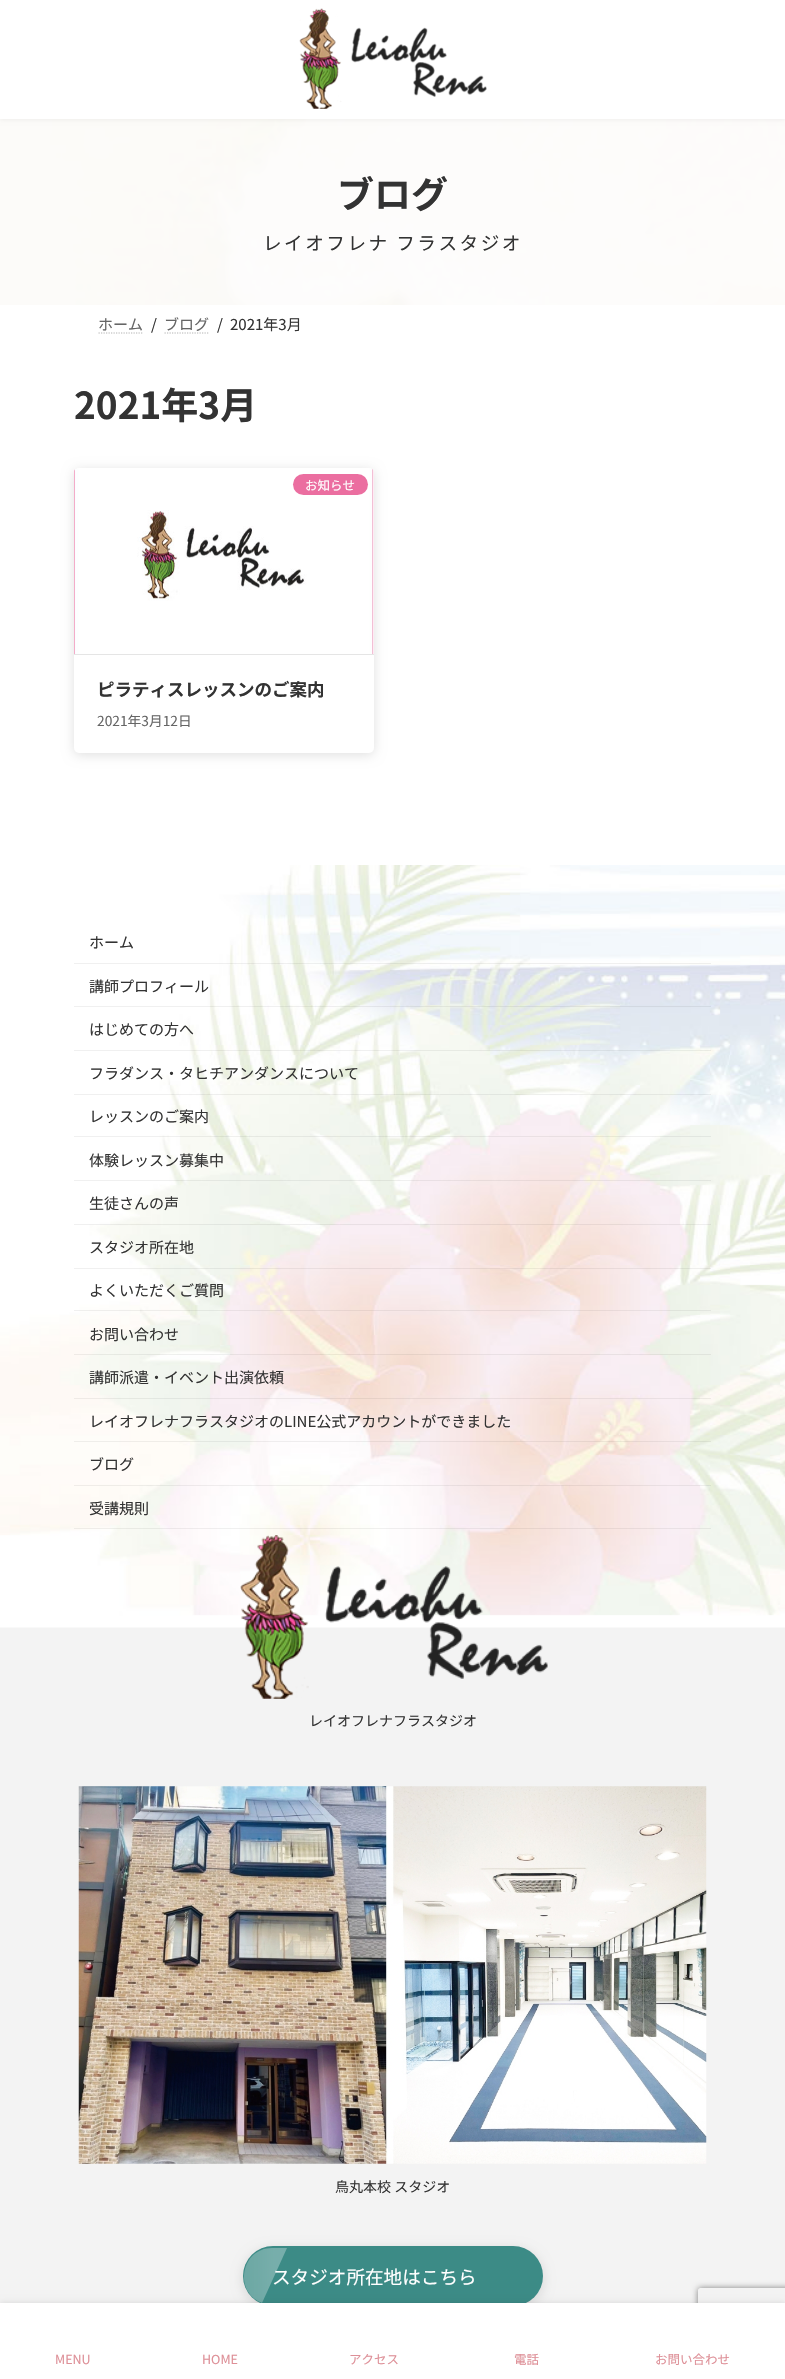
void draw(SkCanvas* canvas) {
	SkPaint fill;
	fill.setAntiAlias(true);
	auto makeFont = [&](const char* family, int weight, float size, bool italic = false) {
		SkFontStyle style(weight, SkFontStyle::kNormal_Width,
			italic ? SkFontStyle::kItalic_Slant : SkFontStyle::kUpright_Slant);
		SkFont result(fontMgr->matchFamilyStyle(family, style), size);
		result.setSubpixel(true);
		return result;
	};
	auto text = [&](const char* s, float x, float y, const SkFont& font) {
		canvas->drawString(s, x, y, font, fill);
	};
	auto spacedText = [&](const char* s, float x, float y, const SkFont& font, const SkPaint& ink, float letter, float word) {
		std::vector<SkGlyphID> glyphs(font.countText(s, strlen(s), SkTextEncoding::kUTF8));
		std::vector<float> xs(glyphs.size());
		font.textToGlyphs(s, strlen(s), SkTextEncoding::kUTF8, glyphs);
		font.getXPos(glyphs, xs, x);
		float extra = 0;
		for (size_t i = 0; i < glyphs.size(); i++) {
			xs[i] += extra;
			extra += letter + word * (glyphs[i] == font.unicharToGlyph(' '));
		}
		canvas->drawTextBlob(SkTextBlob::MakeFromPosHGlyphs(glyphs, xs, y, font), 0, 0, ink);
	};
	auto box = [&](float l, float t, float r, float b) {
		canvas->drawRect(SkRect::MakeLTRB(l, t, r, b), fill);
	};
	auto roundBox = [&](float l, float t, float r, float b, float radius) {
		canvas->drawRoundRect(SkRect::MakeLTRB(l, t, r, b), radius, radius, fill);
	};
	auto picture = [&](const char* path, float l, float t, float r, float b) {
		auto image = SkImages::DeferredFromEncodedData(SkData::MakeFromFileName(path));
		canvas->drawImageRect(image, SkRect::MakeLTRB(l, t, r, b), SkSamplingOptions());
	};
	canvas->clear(0xFFFFFFFF);
	picture("image1.png", 0, 119, 785, 305);
	fill.setColor(0x0D000000);
	fill.setMaskFilter(SkMaskFilter::MakeBlur(kNormal_SkBlurStyle, 2));
	canvas->drawRect(SkRect::MakeLTRB(0, 1, 785, 120), fill);
	fill.setMaskFilter(nullptr);
	fill.setColor(0xFFFFFFFF);
	box(0, 0, 785, 119);
	picture("image0.png", 299, 8, 487, 109);
	fill.setStyle(SkPaint::kStroke_Style);
	fill.setStrokeWidth(1.2f);
	fill.setColor(0xFFB3B3B3);
	fill.setPathEffect(SkDashPathEffect::Make({{1.25f, 1.25f}}, 0));
	canvas->drawPath(SkPathBuilder().moveTo(98.5f, 333).lineTo(143.5f, 333).detach(), fill);
	fill.setPathEffect(nullptr);
	fill.setPathEffect(SkDashPathEffect::Make({{1.25f, 1.25f}}, 0));
	canvas->drawPath(SkPathBuilder().moveTo(164.5f, 333).lineTo(209.5f, 333).detach(), fill);
	fill.setPathEffect(nullptr);
	fill.setStyle(SkPaint::kFill_Style);
	fill.setColor(0x1F000000);
	fill.setMaskFilter(SkMaskFilter::MakeBlur(kNormal_SkBlurStyle, 6));
	canvas->drawRoundRect(SkRect::MakeLTRB(74, 470, 374, 755), 5, 5, fill);
	fill.setMaskFilter(nullptr);
	fill.setColor(0xFFFFFFFF);
	roundBox(74, 468, 374, 753, 5);
	picture("image2.png", 74, 469, 374, 654);
	fill.setColor(0xFFE5E5E5);
	box(74, 654, 374, 655);
	fill.setColor(0xFFEB6EA0);
	roundBox(293, 474, 368, 495, 10.5f);
	fill.setColor(0xFFF3F3F3);
	box(0, 1627, 785, 2303);
	picture("image3.png", 0, 865, 785, 1628);
	fill.setColor(0x0F000000);
	box(74, 963, 711, 964);
	box(74, 1006, 711, 1007);
	box(74, 1050, 711, 1051);
	box(74, 1094, 711, 1095);
	box(74, 1136, 711, 1137);
	box(74, 1180, 711, 1181);
	box(74, 1224, 711, 1225);
	box(74, 1268, 711, 1269);
	box(74, 1310, 711, 1311);
	box(74, 1354, 711, 1355);
	box(74, 1398, 711, 1399);
	box(74, 1441, 711, 1442);
	box(74, 1485, 711, 1486);
	box(74, 1528, 711, 1529);
	picture("image4.png", 240, 1535, 548, 1699);
	picture("image5.png", 78, 1786, 707, 2164);
	fill.setColor(0x1F000000);
	fill.setMaskFilter(SkMaskFilter::MakeBlur(kNormal_SkBlurStyle, 6));
	canvas->drawRoundRect(SkRect::MakeLTRB(243, 2249, 543, 2309), 30, 30, fill);
	fill.setMaskFilter(nullptr);
	fill.setColor(0xFF3C8B86);
	roundBox(243, 2246, 543, 2306, 30);
	canvas->save();
	canvas->clipPath(SkPathBuilder(SkPathFillType::kEvenOdd).moveTo(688, 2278).lineTo(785, 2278).lineTo(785, 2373).lineTo(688, 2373).close().moveTo(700.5f, 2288).lineTo(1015.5f, 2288).cubicTo(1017, 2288, 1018, 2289, 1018, 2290.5f).lineTo(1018, 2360.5f).cubicTo(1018, 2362, 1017, 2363, 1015.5f, 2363).lineTo(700.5f, 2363).cubicTo(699, 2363, 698, 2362, 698, 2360.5f).lineTo(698, 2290.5f).cubicTo(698, 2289, 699, 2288, 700.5f, 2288).close().detach(), true);
	fill.setColor(0xFF808080);
	fill.setMaskFilter(SkMaskFilter::MakeBlur(kNormal_SkBlurStyle, 3));
	canvas->drawRoundRect(SkRect::MakeLTRB(698, 2288, 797, 2363), 2.5f, 2.5f, fill);
	fill.setMaskFilter(nullptr);
	canvas->restore();
	auto font1 = makeFont("Noto Sans JP", 700, 37);
	fill.setColor(0xFF333333);
	text("ブログ", 337, 208, font1);
	auto font2 = makeFont("Noto Sans JP", 400, 18.6f);
	spacedText("レイオフレナ フラスタジオ", 263, 250, font2, fill, 2.5f, 0);
	auto font3 = makeFont("Noto Sans JP", 400, 15);
	fill.setColor(0xFF666666);
	text("ホーム", 98, 330, font3);
	fill.setColor(0xFF333333);
	text("/", 151, 330, font3);
	fill.setColor(0xFF666666);
	text("ブログ", 164, 330, font3);
	fill.setColor(0xFF333333);
	text("/", 217, 330, font3);
	text("2021年3月", 230, 330, font3);
	text("2021年3月", 74, 419, font1);
	auto font4 = makeFont("Noto Sans JP", 400, 12.5f);
	fill.setColor(0xFFFFFFFF);
	text("お知らせ", 305, 490, font4);
	auto font5 = makeFont("Noto Sans JP", 700, 17.5f);
	fill.setColor(0xFF333333);
	text("ピラティスレッスンのご案内", 97, 696, font5);
	auto font6 = makeFont("Noto Sans JP", 400, 13.75f);
	fill.setColor(0xFF666666);
	text("2021年3月12日", 97, 726, font6);
	fill.setColor(0xFF333333);
	text("ホーム", 89, 948, font3);
	text("講師プロフィール", 89, 992, font3);
	text("はじめての方へ", 89, 1035, font3);
	text("フラダンス・タヒチアンダンスについて", 89, 1079, font3);
	text("レッスンのご案内", 89, 1122, font3);
	text("体験レッスン募集中", 89, 1166, font3);
	text("生徒さんの声", 89, 1209, font3);
	text("スタジオ所在地", 89, 1253, font3);
	text("よくいただくご質問", 89, 1296, font3);
	text("お問い合わせ", 89, 1340, font3);
	text("講師派遣・イベント出演依頼", 89, 1383, font3);
	text("レイオフレナフラスタジオのLINE公式アカウントができました", 89, 1427, font3);
	text("ブログ", 89, 1470, font3);
	text("受講規則", 89, 1514, font3);
	auto font7 = makeFont("Noto Sans JP", 400, 14);
	text("レイオフレナフラスタジオ", 309, 1726, font7);
	text("烏丸本校 スタジオ", 335, 2192, font7);
	fill.setColor(0xFFFFFFFF);
	text("スタジオ所在地はこちら", 272, 2284, font2);
	{
		const SkColor colors[] = {0x00FFFFFF, 0x4DFFFFFF};
		const float stops[] = {0, 1};
		const SkPoint ends[] = {{126, 2277}, {274, 2277}};
		fill.setShader(SkGradientShader::MakeLinear(ends, colors, stops, 2, SkTileMode::kClamp));
		fill.setAlpha(255);
	}
	canvas->drawPath(SkPathBuilder().moveTo(272, 2248).cubicTo(241, 2248, 233, 2292, 262, 2303).lineTo(287, 2248).close().detach(), fill);
	fill.setShader(nullptr);
	fill.setColor(0x1F000000);
	fill.setMaskFilter(SkMaskFilter::MakeBlur(kNormal_SkBlurStyle, 3));
	canvas->drawRect(SkRect::MakeLTRB(0, 2303, 785, 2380), fill);
	fill.setMaskFilter(nullptr);
	fill.setColor(0xFFFFFFFF);
	box(0, 2303, 785, 2379);
	fill.setColor(0xFFDE9098);
	text("MENU", 55, 2364, font4);
	text("HOME", 202, 2364, font4);
	text("アクセス", 349, 2364, font4);
	text("電話", 514, 2364, font4);
	text("お問い合わせ", 655, 2364, font4);
}
